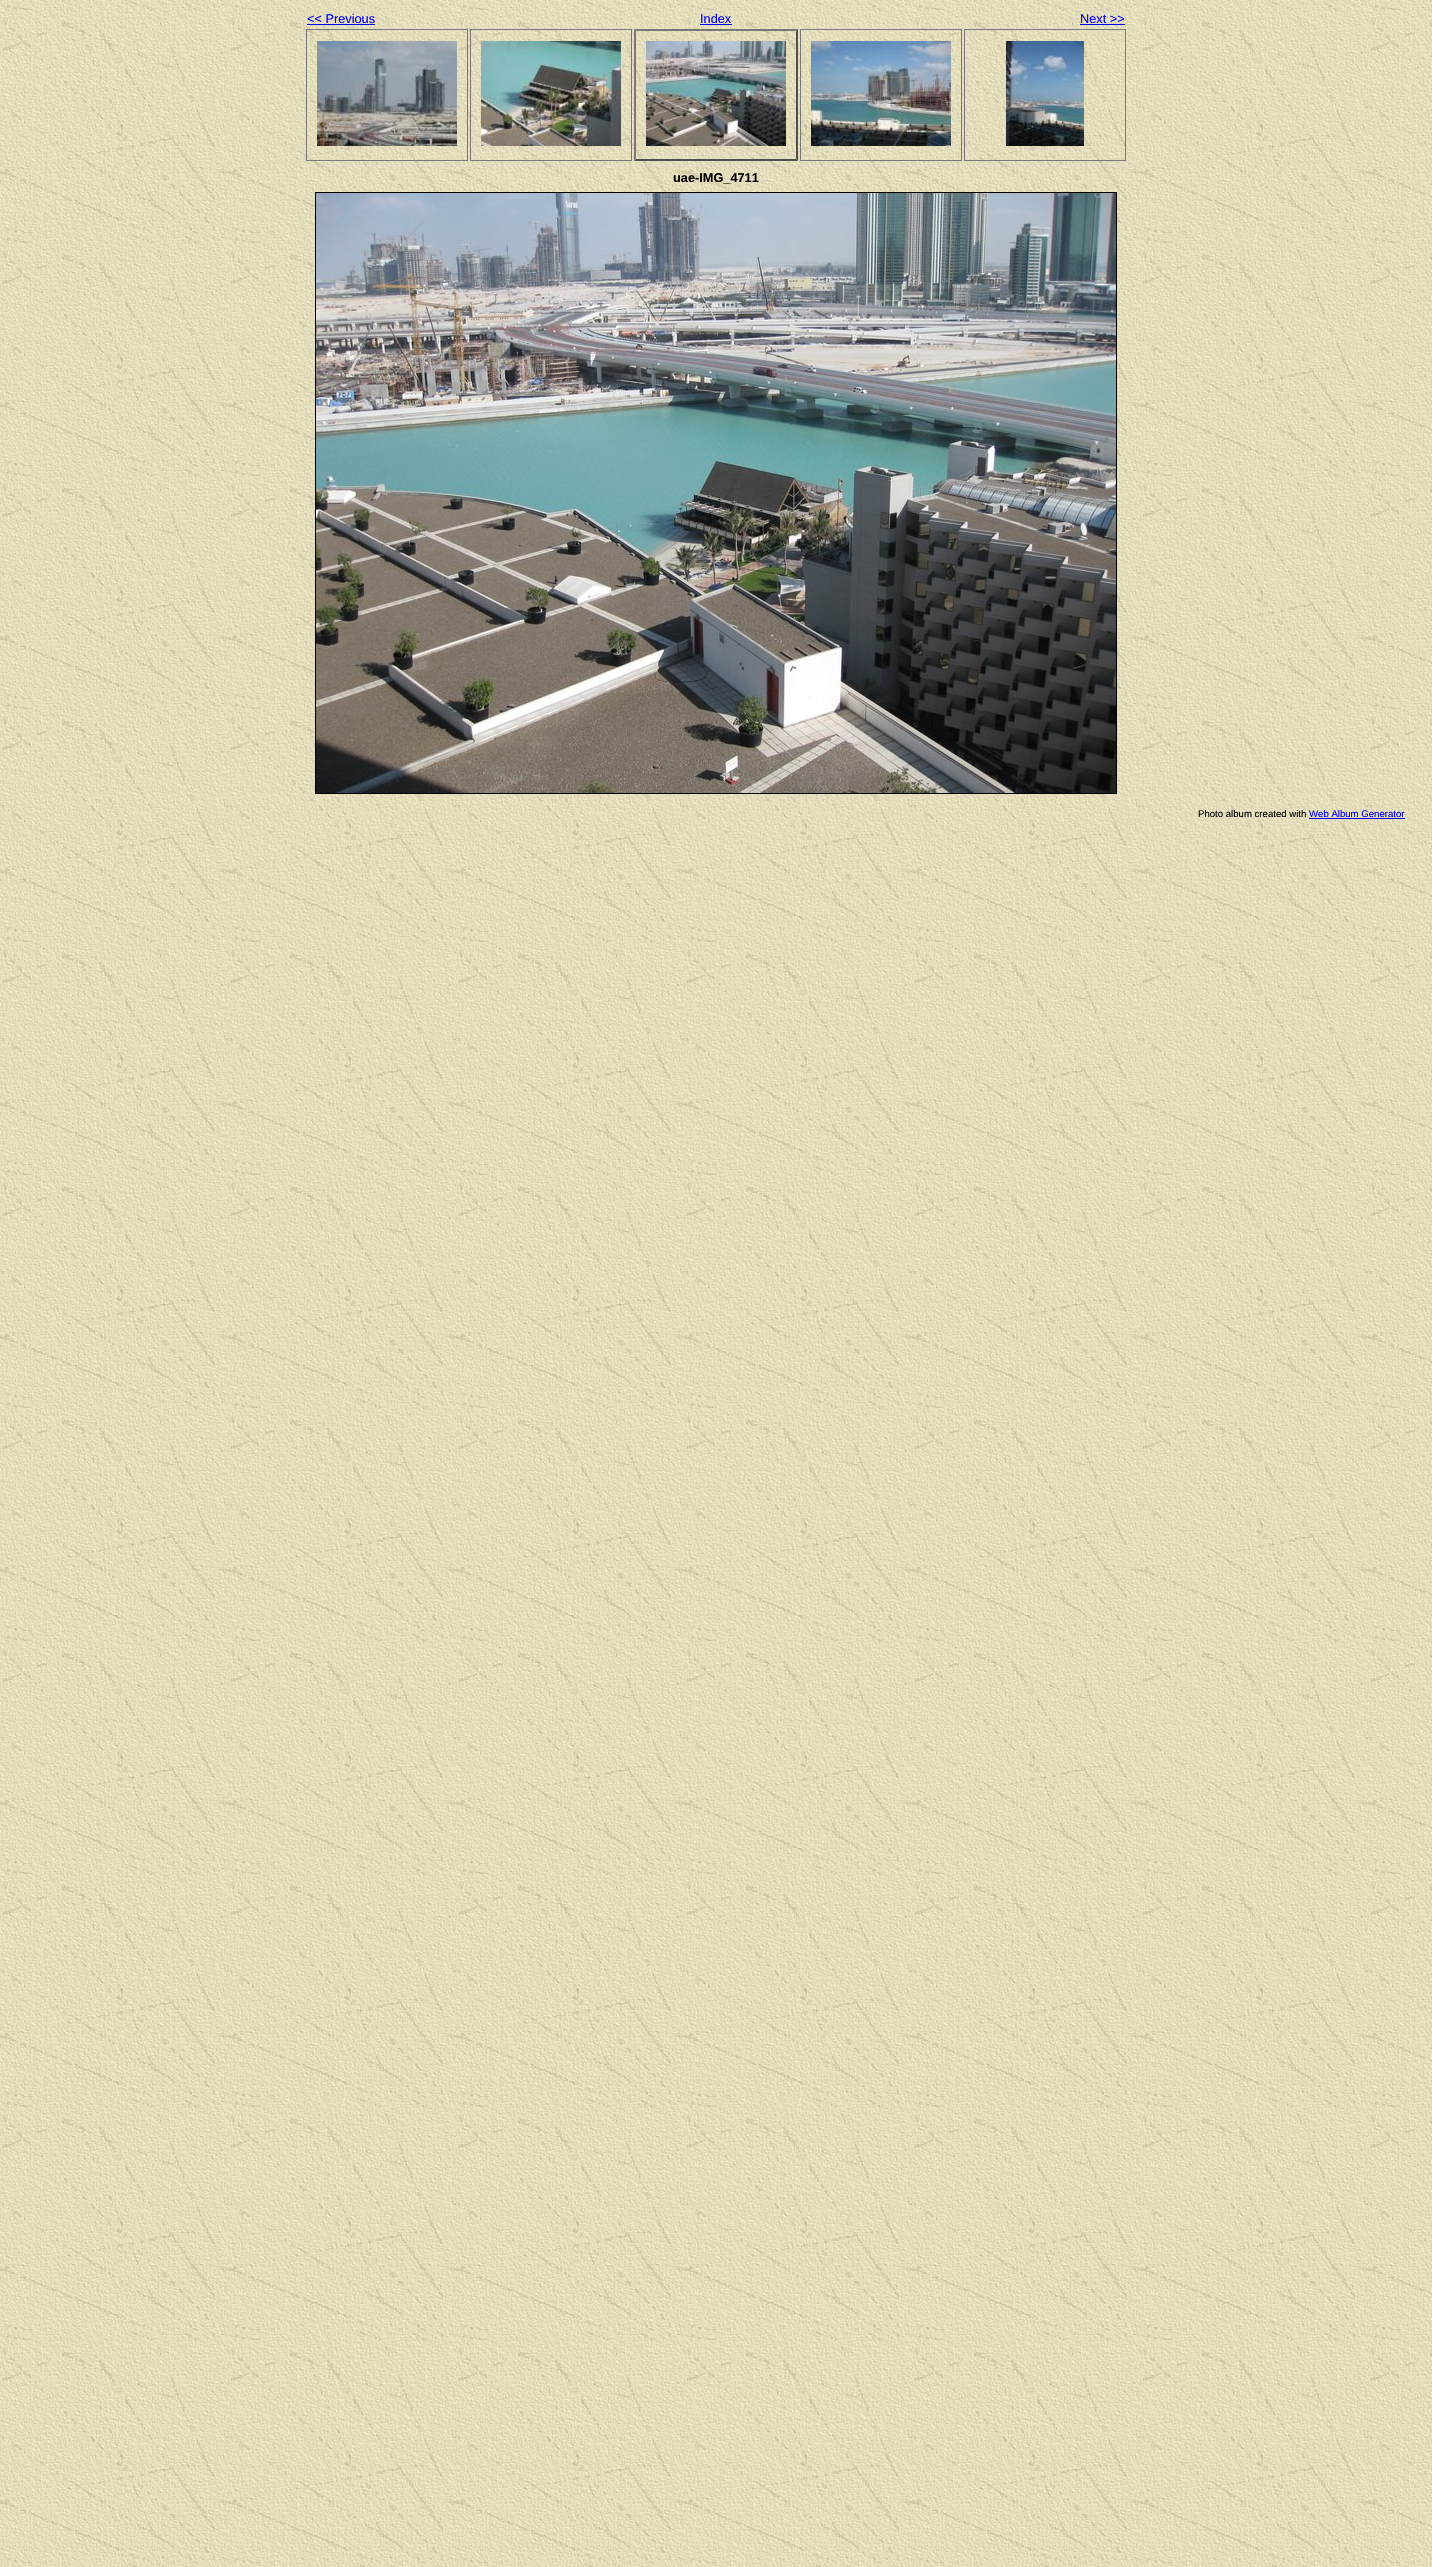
void draw(SkCanvas* canvas) {
	SkPaint fill;
	fill.setAntiAlias(true);
	auto makeFont = [&](const char* family, int weight, float size, bool italic = false) {
		SkFontStyle style(weight, SkFontStyle::kNormal_Width,
			italic ? SkFontStyle::kItalic_Slant : SkFontStyle::kUpright_Slant);
		SkFont result(fontMgr->matchFamilyStyle(family, style), size);
		result.setSubpixel(true);
		return result;
	};
	auto text = [&](const char* s, float x, float y, const SkFont& font) {
		canvas->drawString(s, x, y, font, fill);
	};
	auto box = [&](float l, float t, float r, float b) {
		canvas->drawRect(SkRect::MakeLTRB(l, t, r, b), fill);
	};
	auto picture = [&](const char* path, float l, float t, float r, float b) {
		auto image = SkImages::DeferredFromEncodedData(SkData::MakeFromFileName(path));
		canvas->drawImageRect(image, SkRect::MakeLTRB(l, t, r, b), SkSamplingOptions());
	};
	canvas->clear(0xFFFFFFFF);
	picture("image0.png", 0, 0, 1432, 2567);
	fill.setColor(0xFF0000FF);
	box(307, 24, 375, 25);
	box(700, 24, 732, 25);
	box(1080, 24, 1125, 25);
	fill.setStyle(SkPaint::kStroke_Style);
	fill.setStrokeWidth(1);
	fill.setColor(0xFF787878);
	canvas->drawRect(SkRect::MakeLTRB(306.5f, 29.5f, 467.5f, 160.5f), fill);
	picture("image1.png", 317, 41, 457, 146);
	canvas->drawRect(SkRect::MakeLTRB(470.5f, 29.5f, 631.5f, 160.5f), fill);
	picture("image2.png", 481, 41, 621, 146);
	fill.setStyle(SkPaint::kFill_Style);
	canvas->drawPath(SkPathBuilder().moveTo(634, 29).lineTo(798, 29).lineTo(796, 31).lineTo(636, 31).close().detach(), fill);
	fill.setColor(0xFF505050);
	canvas->drawPath(SkPathBuilder().moveTo(798, 29).lineTo(798, 161).lineTo(796, 159).lineTo(796, 31).close().detach(), fill);
	canvas->drawPath(SkPathBuilder().moveTo(798, 161).lineTo(634, 161).lineTo(636, 159).lineTo(796, 159).close().detach(), fill);
	fill.setColor(0xFF787878);
	canvas->drawPath(SkPathBuilder().moveTo(634, 161).lineTo(634, 29).lineTo(636, 31).lineTo(636, 159).close().detach(), fill);
	picture("image3.png", 646, 41, 786, 146);
	fill.setStyle(SkPaint::kStroke_Style);
	canvas->drawRect(SkRect::MakeLTRB(800.5f, 29.5f, 961.5f, 160.5f), fill);
	picture("image4.png", 811, 41, 951, 146);
	canvas->drawRect(SkRect::MakeLTRB(964.5f, 29.5f, 1125.5f, 160.5f), fill);
	picture("image5.png", 1006, 41, 1084, 146);
	fill.setColor(0xFF000000);
	canvas->drawRect(SkRect::MakeLTRB(315.5f, 192.5f, 1116.5f, 793.5f), fill);
	picture("image6.png", 316, 193, 1116, 793);
	fill.setStyle(SkPaint::kFill_Style);
	fill.setColor(0xFF0000FF);
	box(1309, 818, 1405, 819);
	auto font1 = makeFont("Liberation Sans", 400, 12.75f);
	text("<< Previous", 307, 23, font1);
	text("Index", 700, 23, font1);
	text("Next >>", 1080, 23, font1);
	auto font2 = makeFont("Liberation Sans", 700, 12.75f);
	fill.setColor(0xFF000000);
	text("uae-IMG_4711", 673, 182, font2);
	auto font3 = makeFont("Liberation Sans", 400, 9.6f);
	text("Photo album created with", 1198, 817, font3);
	fill.setColor(0xFF0000FF);
	text("Web Album Generator", 1309, 817, font3);
}
